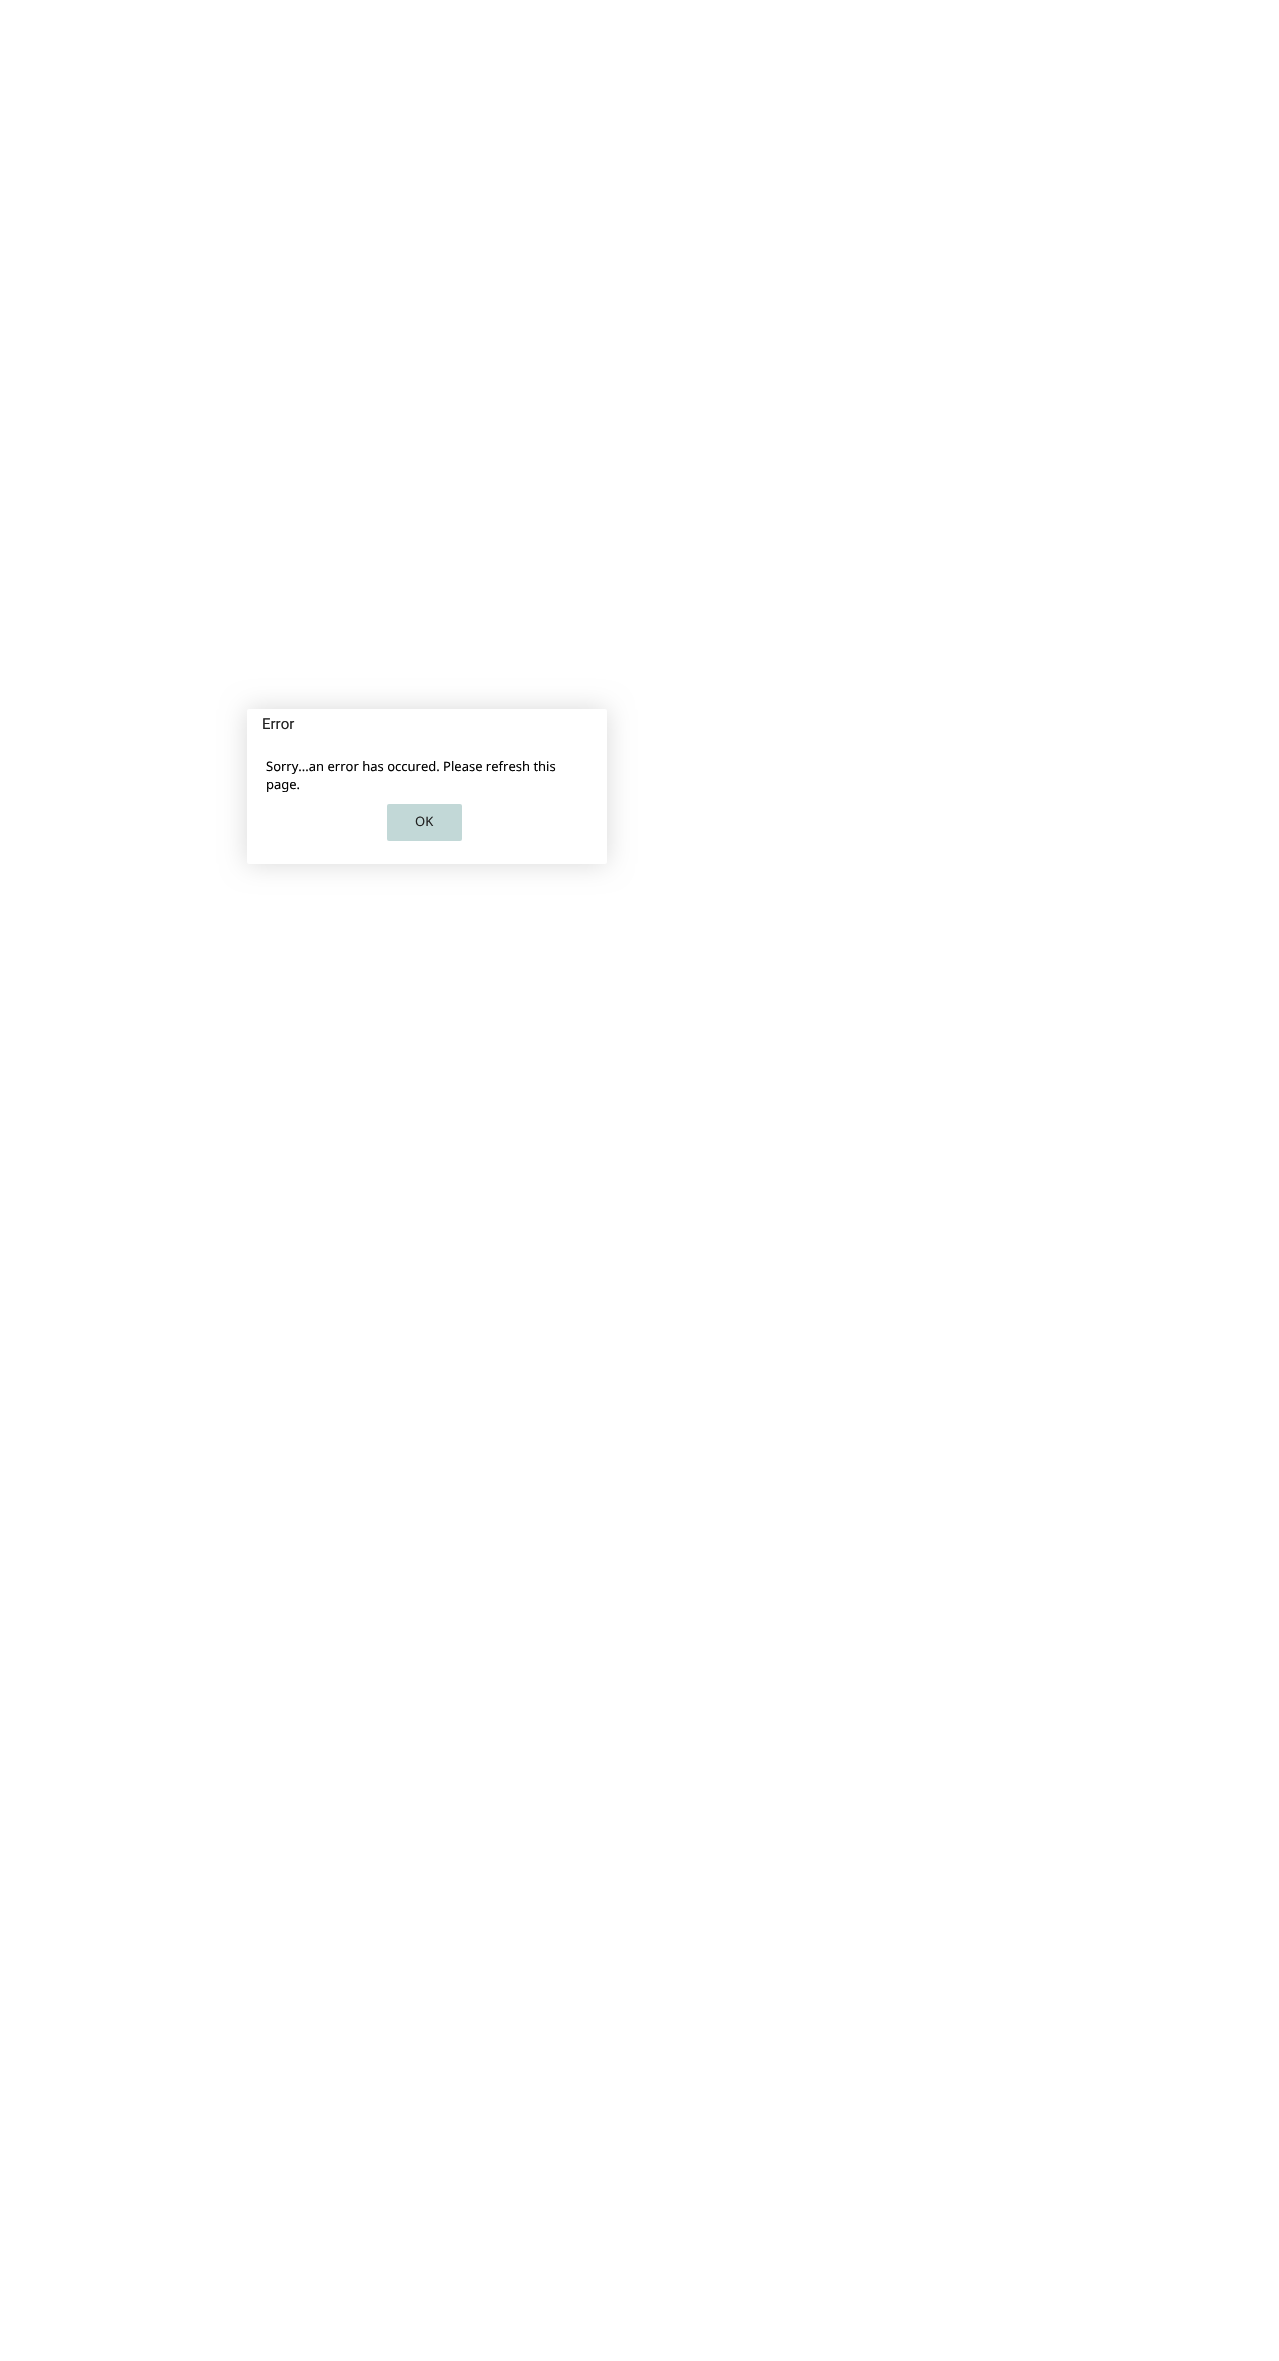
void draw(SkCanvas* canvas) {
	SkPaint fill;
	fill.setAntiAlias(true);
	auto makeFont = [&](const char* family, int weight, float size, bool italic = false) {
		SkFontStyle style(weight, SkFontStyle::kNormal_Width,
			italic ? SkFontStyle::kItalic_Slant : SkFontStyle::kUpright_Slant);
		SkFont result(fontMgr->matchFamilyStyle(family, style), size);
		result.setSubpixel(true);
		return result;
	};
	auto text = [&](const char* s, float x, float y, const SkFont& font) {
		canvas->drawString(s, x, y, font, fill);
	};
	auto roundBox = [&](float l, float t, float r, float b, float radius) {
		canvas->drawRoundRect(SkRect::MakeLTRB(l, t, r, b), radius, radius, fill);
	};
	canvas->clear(0xFFFFFFFF);
	fill.setColor(0x26000000);
	fill.setMaskFilter(SkMaskFilter::MakeBlur(kNormal_SkBlurStyle, 13));
	canvas->drawRoundRect(SkRect::MakeLTRB(247, 709, 607, 864), 2, 2, fill);
	fill.setMaskFilter(nullptr);
	fill.setColor(0xFFFFFFFF);
	roundBox(247, 709, 607, 864, 2);
	fill.setColor(0xFFC2D8D7);
	roundBox(387, 804, 462, 841, 2);
	auto font1 = makeFont("Roboto", 400, 15);
	fill.setColor(0xFF222222);
	text("Error", 262, 729, font1);
	auto font2 = makeFont("Noto Sans", 400, 13);
	fill.setColor(0xFF000000);
	text("Sorry...an error has occured. Please refresh this", 266, 771, font2);
	canvas->save();
	canvas->clipRect(SkRect::MakeLTRB(262, 757, 592, 792));
	text("page.", 266, 789, font2);
	canvas->restore();
	fill.setColor(0xFF222222);
	text("OK", 415, 826, font2);
}
